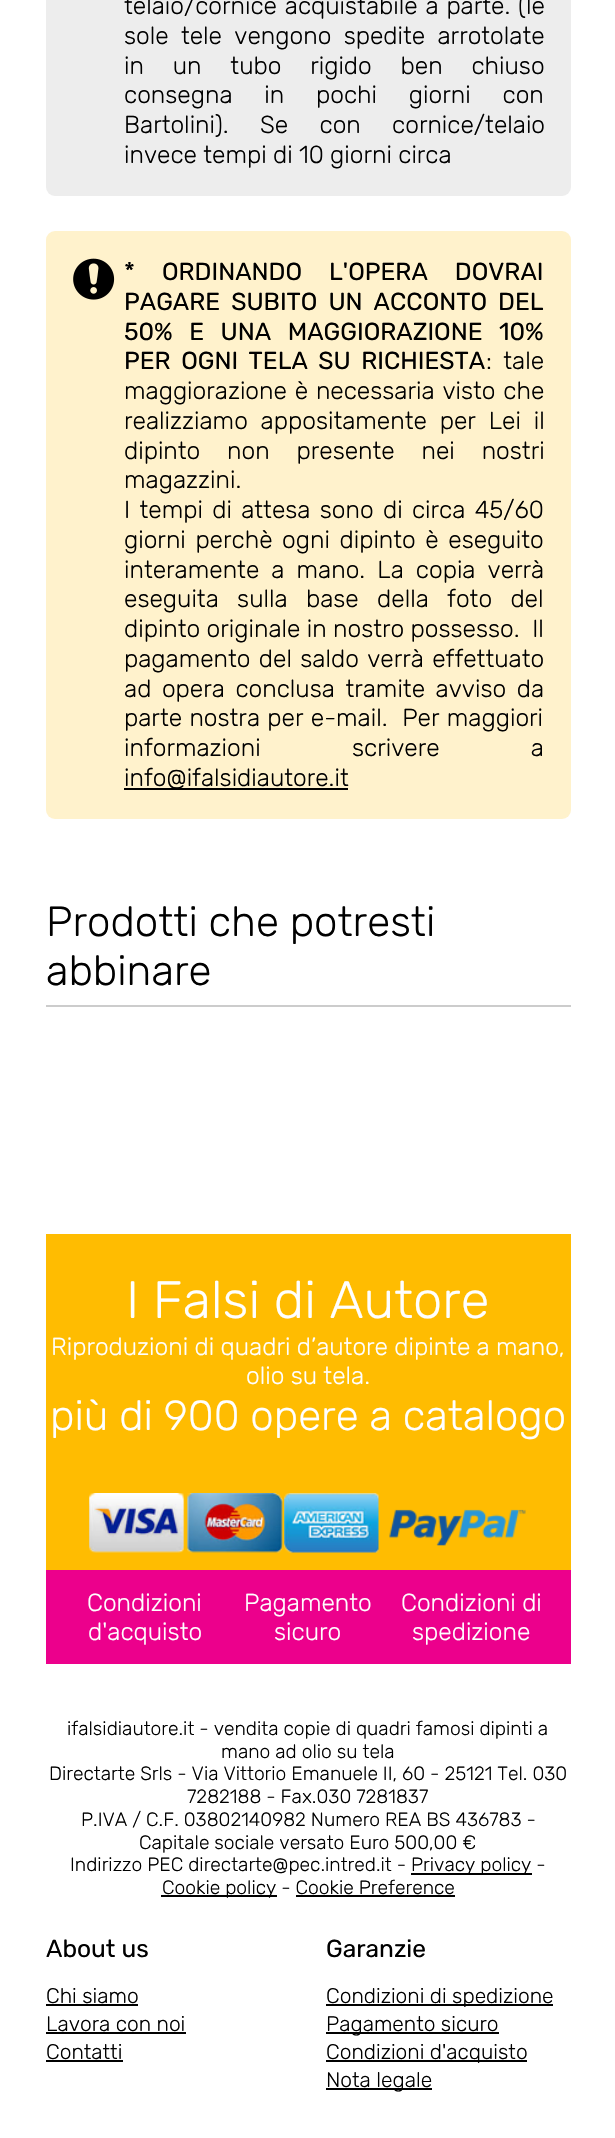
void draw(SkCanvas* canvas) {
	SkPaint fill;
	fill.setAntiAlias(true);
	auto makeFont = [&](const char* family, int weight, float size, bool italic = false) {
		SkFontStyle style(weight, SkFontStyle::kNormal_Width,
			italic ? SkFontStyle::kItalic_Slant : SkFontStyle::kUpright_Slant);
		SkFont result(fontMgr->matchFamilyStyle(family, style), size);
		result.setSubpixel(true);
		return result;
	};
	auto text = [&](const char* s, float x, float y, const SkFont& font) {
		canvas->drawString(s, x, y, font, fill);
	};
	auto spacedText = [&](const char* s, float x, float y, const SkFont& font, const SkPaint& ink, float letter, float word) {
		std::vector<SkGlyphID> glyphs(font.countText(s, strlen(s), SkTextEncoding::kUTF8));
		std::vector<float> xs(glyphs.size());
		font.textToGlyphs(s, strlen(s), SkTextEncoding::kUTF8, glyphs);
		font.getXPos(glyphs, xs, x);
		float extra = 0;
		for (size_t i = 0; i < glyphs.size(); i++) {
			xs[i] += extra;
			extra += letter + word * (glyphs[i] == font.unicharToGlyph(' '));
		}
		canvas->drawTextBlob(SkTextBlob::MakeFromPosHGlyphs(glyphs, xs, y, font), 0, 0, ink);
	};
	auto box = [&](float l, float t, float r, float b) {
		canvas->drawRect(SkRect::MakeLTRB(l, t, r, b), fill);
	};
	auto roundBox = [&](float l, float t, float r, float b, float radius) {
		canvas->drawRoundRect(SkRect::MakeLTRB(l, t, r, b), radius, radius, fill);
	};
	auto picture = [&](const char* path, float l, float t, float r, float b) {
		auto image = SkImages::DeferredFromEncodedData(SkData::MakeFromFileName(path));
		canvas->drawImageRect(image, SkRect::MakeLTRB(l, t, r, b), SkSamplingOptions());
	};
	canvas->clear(0xFFFFFFFF);
	fill.setColor(0xFFEDEDED);
	roundBox(46, -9, 571, 196, 9);
	fill.setColor(0xFFFFF2CC);
	roundBox(46, 231, 571, 819, 9);
	picture("image0.png", 73, 258, 115, 300);
	fill.setColor(0xFF000000);
	box(124, 788, 348, 790);
	fill.setColor(0xFFCCCCCC);
	box(46, 1005, 571, 1007);
	fill.setColor(0xFFFFBC01);
	box(46, 1234, 571, 1570);
	picture("image1.png", 89, 1493, 526, 1553);
	fill.setColor(0xFFEC008C);
	box(46, 1570, 571, 1664);
	fill.setColor(0xFF000000);
	box(411, 1873, 532, 1875);
	box(161, 1895, 277, 1897);
	box(296, 1895, 455, 1897);
	box(46, 2004, 138, 2006);
	box(46, 2032, 186, 2034);
	box(46, 2060, 123, 2062);
	box(326, 2004, 553, 2006);
	box(326, 2032, 499, 2034);
	box(326, 2060, 527, 2062);
	box(326, 2088, 432, 2090);
	auto font1 = makeFont("Rubik", 300, 24.5f);
	spacedText("telaio/cornice acquistabile a parte. (le", 124, 14, font1, fill, 0, 1.5f);
	spacedText("sole tele vengono spedite arrotolate", 124, 44, font1, fill, 0, 6);
	spacedText("in un tubo rigido ben chiuso", 124, 74, font1, fill, 0, 22.5f);
	spacedText("consegna in pochi giorni con", 124, 103, font1, fill, 0, 25.5f);
	spacedText("Bartolini). Se con cornice/telaio", 124, 133, font1, fill, 0, 25);
	text("invece tempi di 10 giorni circa", 124, 163, font1);
	auto font2 = makeFont("Rubik", 400, 24.5f);
	spacedText("* ORDINANDO L'OPERA DOVRAI", 124, 280, font2, fill, 0, 21);
	spacedText("PAGARE SUBITO UN ACCONTO DEL", 124, 310, font2, fill, 0, 5);
	spacedText("50% E UNA MAGGIORAZIONE 10%", 124, 340, font2, fill, 0, 10.5f);
	spacedText("PER OGNI TELA SU RICHIESTA", 124, 369, font2, fill, 0, 4.5f);
	spacedText(": tale", 486, 369, font1, fill, 0, 5);
	spacedText("maggiorazione è necessaria visto che", 124, 399, font1, fill, 0, 1.5f);
	spacedText("realizziamo appositamente per Lei il", 124, 429, font1, fill, 0, 6.5f);
	spacedText("dipinto non presente nei nostri", 124, 459, font1, fill, 0, 20.5f);
	text("magazzini.", 124, 488, font1);
	spacedText("I tempi di attesa sono di circa 45/60", 124, 518, font1, fill, 0, 3);
	spacedText("giorni perchè ogni dipinto è eseguito", 124, 548, font1, fill, 0, 3.25f);
	spacedText("interamente a mano. La copia verrà", 124, 578, font1, fill, 0, 5.75f);
	spacedText("eseguita sulla base della foto del", 124, 607, font1, fill, 0, 12);
	text("dipinto originale in nostro possesso.  Il", 124, 637, font1);
	spacedText("pagamento del saldo verrà effettuato", 124, 667, font1, fill, 0, 2);
	spacedText("ad opera conclusa tramite avviso da", 124, 697, font1, fill, 0, 4.25f);
	spacedText("parte nostra per e-mail.  Per maggiori", 124, 726, font1, fill, 0, 1);
	spacedText("informazioni scrivere a", 124, 756, font1, fill, 0, 85);
	text("info@ifalsidiautore.it", 124, 786, font1);
	auto font3 = makeFont("Rubik", 300, 42);
	text("Prodotti che potresti", 46, 936, font3);
	text("abbinare", 46, 985, font3);
	auto font4 = makeFont("Rubik", 300, 52.5f);
	fill.setColor(0xFFFFFFFF);
	text("I Falsi di Autore", 126, 1318, font4);
	text("Riproduzioni di quadri d’autore dipinte a mano,", 51, 1355, font1);
	text("olio su tela.", 246, 1384, font1);
	text("più di 900 opere a catalogo", 50, 1430, font3);
	text("Condizioni", 87, 1611, font1);
	text("d'acquisto", 88, 1640, font1);
	text("Pagamento", 244, 1611, font1);
	text("sicuro", 274, 1640, font1);
	text("Condizioni di", 401, 1611, font1);
	text("spedizione", 412, 1640, font1);
	auto font5 = makeFont("Rubik", 300, 19.25f);
	fill.setColor(0xFF000000);
	text("ifalsidiautore.it - vendita copie di quadri famosi dipinti a", 67, 1735, font5);
	text("mano ad olio su tela", 221, 1758, font5);
	text("Directarte Srls - Via Vittorio Emanuele II, 60 - 25121 Tel. 030", 49, 1780, font5);
	text("7282188 - Fax.030 7281837", 187, 1803, font5);
	text("P.IVA / C.F. 03802140982 Numero REA BS 436783 -", 81, 1826, font5);
	text("Capitale sociale versato Euro 500,00 €", 139, 1849, font5);
	text("Indirizzo PEC directarte@pec.intred.it -", 70, 1871, font5);
	text("Privacy policy -", 411, 1871, font5);
	text("Cookie policy - Cookie Preference", 162, 1894, font5);
	text("About us", 46, 1957, font2);
	auto font6 = makeFont("Rubik", 300, 21);
	text("Chi siamo", 46, 2003, font6);
	text("Lavora con noi", 46, 2031, font6);
	text("Contatti", 46, 2059, font6);
	text("Garanzie", 326, 1957, font2);
	text("Condizioni di spedizione", 326, 2003, font6);
	text("Pagamento sicuro", 326, 2031, font6);
	text("Condizioni d'acquisto", 326, 2059, font6);
	text("Nota legale", 326, 2087, font6);
}
